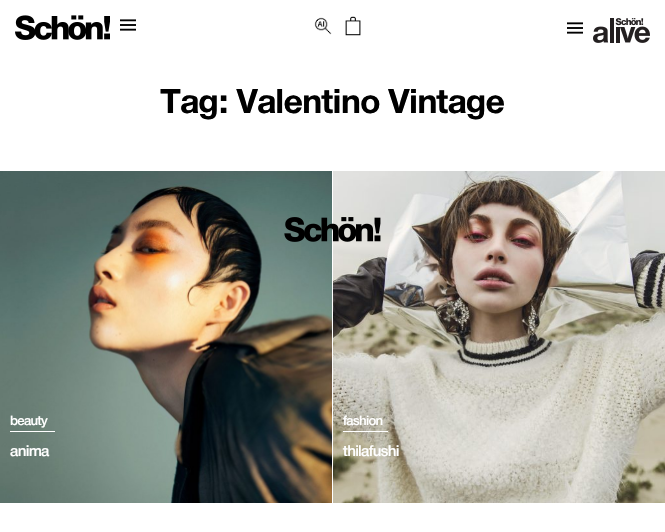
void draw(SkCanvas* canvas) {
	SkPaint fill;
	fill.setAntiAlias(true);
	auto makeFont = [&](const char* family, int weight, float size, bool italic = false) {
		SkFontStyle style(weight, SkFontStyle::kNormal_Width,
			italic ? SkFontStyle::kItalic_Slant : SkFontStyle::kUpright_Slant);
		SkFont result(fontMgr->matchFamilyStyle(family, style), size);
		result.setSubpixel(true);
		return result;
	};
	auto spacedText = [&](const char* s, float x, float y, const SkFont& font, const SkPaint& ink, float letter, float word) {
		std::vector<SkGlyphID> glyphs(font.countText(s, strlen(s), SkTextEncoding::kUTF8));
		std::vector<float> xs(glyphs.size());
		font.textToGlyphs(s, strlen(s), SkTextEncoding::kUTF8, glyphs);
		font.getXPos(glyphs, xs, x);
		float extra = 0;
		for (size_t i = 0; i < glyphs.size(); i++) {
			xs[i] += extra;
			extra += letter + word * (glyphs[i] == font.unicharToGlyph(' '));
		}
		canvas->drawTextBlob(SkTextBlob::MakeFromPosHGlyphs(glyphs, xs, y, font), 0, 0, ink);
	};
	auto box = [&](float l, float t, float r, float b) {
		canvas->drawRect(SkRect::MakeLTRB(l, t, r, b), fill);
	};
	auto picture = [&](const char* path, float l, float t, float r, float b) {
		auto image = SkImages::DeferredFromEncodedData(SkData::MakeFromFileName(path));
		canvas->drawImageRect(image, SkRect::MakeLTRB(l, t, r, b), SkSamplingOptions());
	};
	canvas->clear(0xFFFFFFFF);
	picture("image0.png", 15, 15, 110, 40);
	picture("image1.png", 120, 19, 136, 31);
	picture("image2.png", 314, 17, 332, 35);
	picture("image3.png", 345, 16, 361, 36);
	picture("image1.png", 567, 22, 583, 34);
	picture("image4.png", 593, 18, 650, 43);
	picture("image5.png", 0, 171, 332, 503);
	fill.setColor(0xFFFFFFFF);
	box(10, 431, 55, 432);
	picture("image6.png", 333, 171, 665, 503);
	box(343, 431, 388, 432);
	picture("image7.png", 284, 217, 381, 242);
	auto font1 = makeFont("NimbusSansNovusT", 700, 36);
	fill.setColor(0xFF000000);
	spacedText("Tag: Valentino Vintage", 160, 113, font1, fill, -0.75f, 0);
	auto font2 = makeFont("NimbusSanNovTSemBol", 600, 14);
	fill.setColor(0xFFFFFFFF);
	spacedText("beauty", 10, 425, font2, fill, -0.75f, 0);
	auto font3 = makeFont("NimbusSanNovTSemBol", 600, 16);
	spacedText("anima", 10, 456, font3, fill, -0.75f, 0);
	spacedText("fashion", 343, 425, font2, fill, -0.75f, 0);
	spacedText("thilafushi", 343, 456, font3, fill, -0.75f, 0);
}
